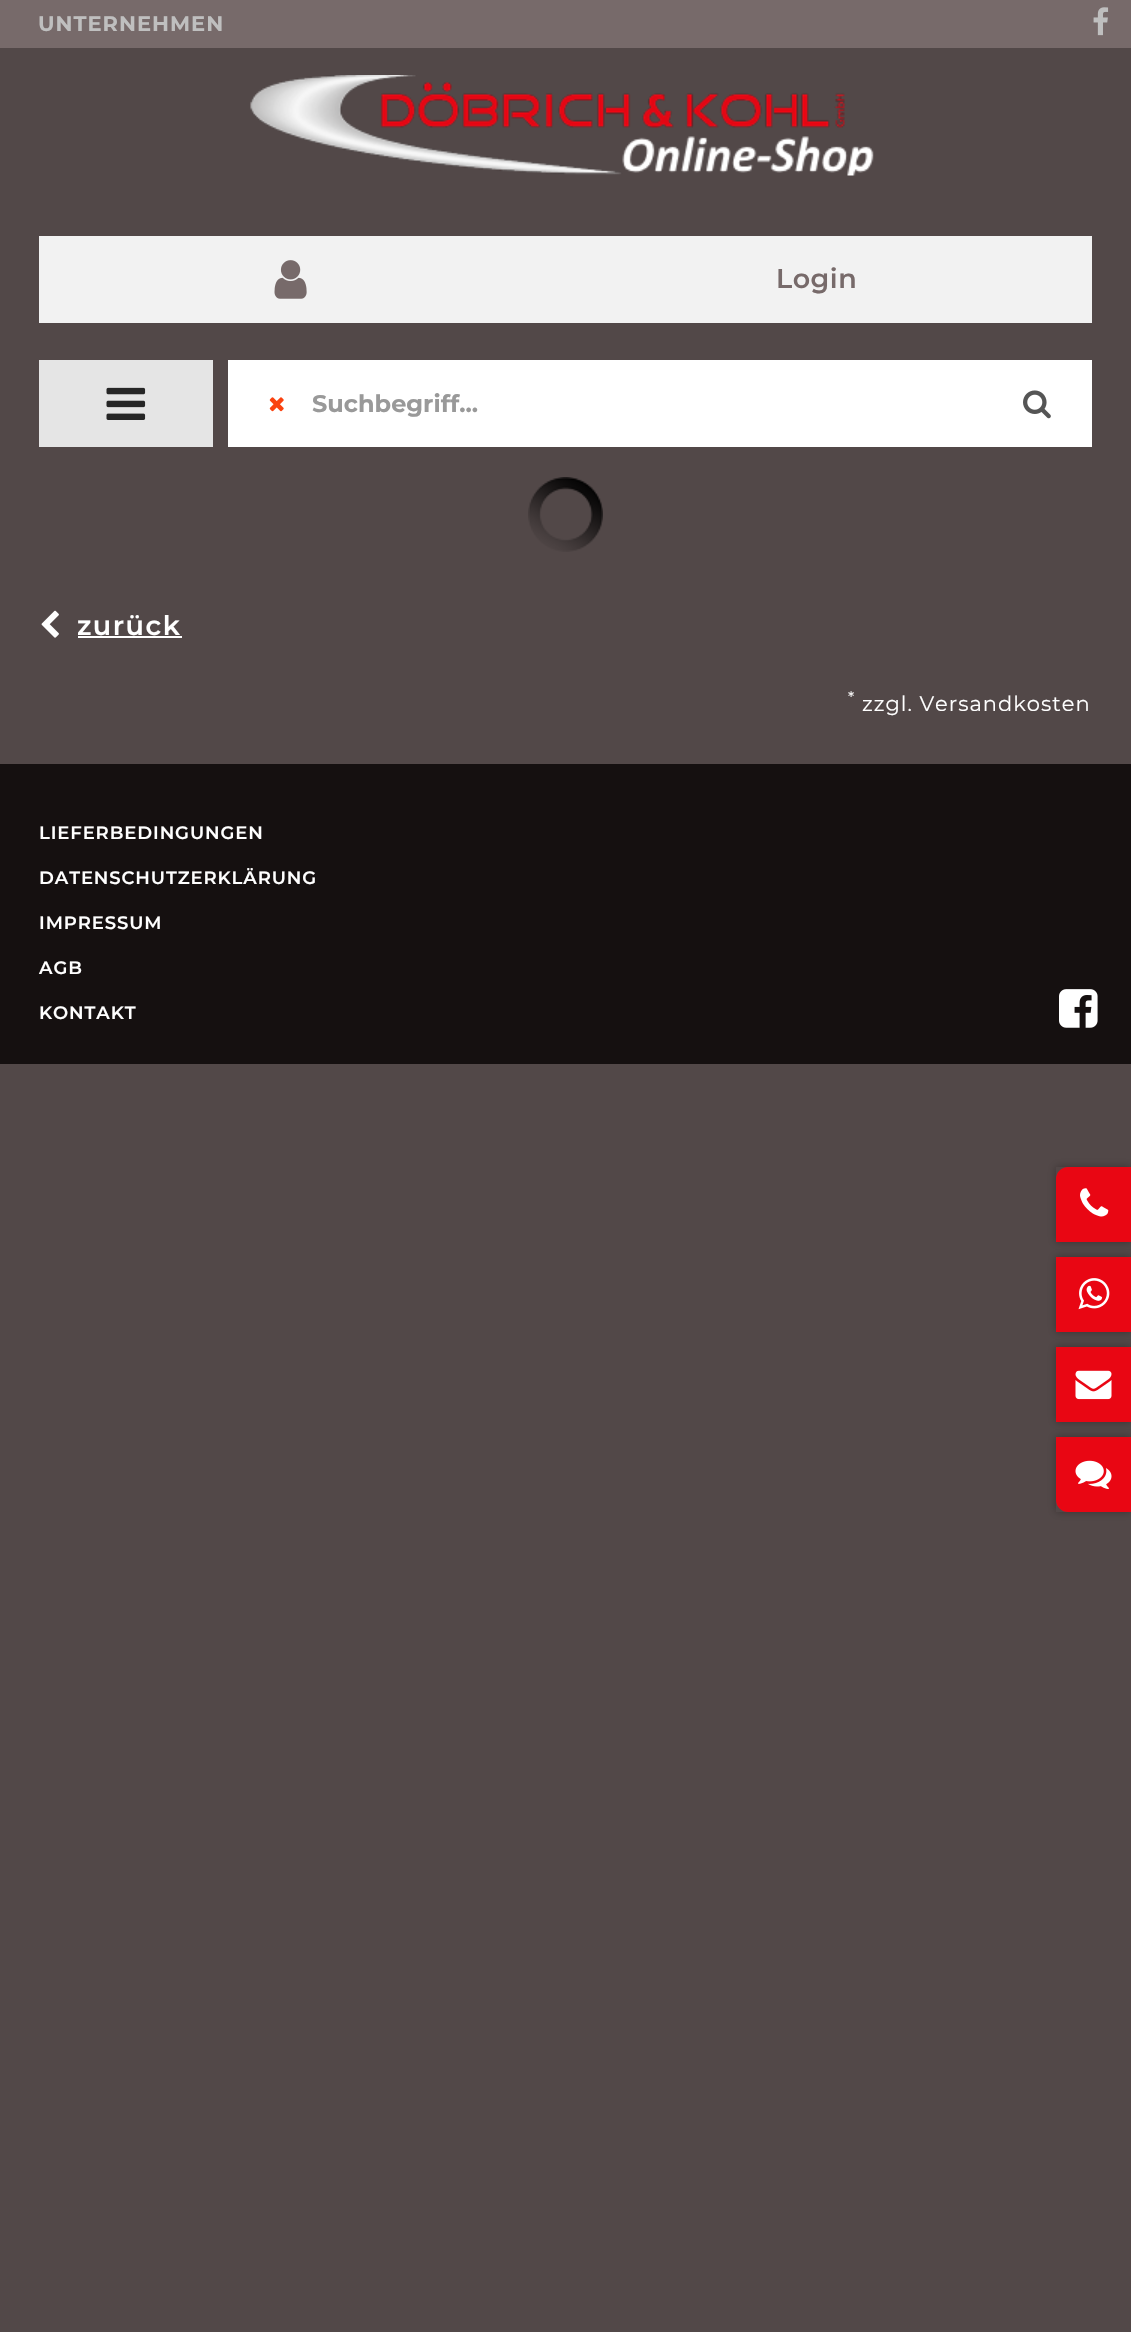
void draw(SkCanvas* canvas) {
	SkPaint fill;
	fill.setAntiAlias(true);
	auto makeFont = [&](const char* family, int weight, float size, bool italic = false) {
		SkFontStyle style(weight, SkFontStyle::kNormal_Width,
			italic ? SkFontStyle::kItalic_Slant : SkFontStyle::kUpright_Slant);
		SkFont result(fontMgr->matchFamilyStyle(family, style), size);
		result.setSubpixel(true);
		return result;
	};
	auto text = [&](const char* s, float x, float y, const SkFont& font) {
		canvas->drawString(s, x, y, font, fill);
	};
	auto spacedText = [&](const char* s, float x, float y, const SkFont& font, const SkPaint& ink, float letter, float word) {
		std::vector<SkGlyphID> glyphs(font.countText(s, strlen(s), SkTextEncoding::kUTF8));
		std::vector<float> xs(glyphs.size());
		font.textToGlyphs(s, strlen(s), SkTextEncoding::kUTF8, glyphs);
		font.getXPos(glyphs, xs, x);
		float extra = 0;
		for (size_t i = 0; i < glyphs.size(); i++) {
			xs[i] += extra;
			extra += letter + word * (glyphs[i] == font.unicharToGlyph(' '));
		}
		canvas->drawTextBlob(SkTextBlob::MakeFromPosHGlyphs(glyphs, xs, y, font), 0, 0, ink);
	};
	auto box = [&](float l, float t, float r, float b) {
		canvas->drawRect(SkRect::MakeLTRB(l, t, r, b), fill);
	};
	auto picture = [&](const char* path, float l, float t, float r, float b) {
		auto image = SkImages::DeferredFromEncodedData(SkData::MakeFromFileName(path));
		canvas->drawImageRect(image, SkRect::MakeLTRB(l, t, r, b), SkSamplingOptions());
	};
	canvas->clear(0xFF524848);
	fill.setColor(0xFF776A6A);
	box(0, 0, 1131, 48);
	picture("image0.png", 1093, 7, 1109, 36);
	picture("image1.png", 250, 75, 874, 176);
	fill.setColor(0xFFF2F2F2);
	box(39, 236, 1092, 323);
	picture("image2.png", 274, 260, 307, 299);
	fill.setColor(0xFFE5E5E5);
	box(39, 360, 213, 447);
	picture("image3.png", 106, 387, 146, 420);
	fill.setColor(0xFFFFFFFF);
	box(228, 360, 1092, 447);
	picture("image4.png", 269, 397, 284, 412);
	picture("image5.png", 1023, 390, 1051, 419);
	picture("image6.png", 528, 477, 603, 552);
	picture("image7.png", 41, 610, 59, 638);
	box(78, 636, 182, 638);
	fill.setColor(0xFF151010);
	box(0, 764, 1131, 1064);
	picture("image8.png", 1059, 989, 1098, 1028);
	canvas->save();
	canvas->clipPath(SkPathBuilder(SkPathFillType::kEvenOdd).moveTo(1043, 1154).lineTo(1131, 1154).lineTo(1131, 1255).lineTo(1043, 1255).close().moveTo(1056, 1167).lineTo(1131, 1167).lineTo(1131, 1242).lineTo(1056, 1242).close().detach(), true);
	fill.setColor(0x4D000000);
	fill.setMaskFilter(SkMaskFilter::MakeBlur(kNormal_SkBlurStyle, 4));
	canvas->drawRect(SkRect::MakeLTRB(1056, 1167, 1131, 1242), fill);
	fill.setMaskFilter(nullptr);
	canvas->restore();
	fill.setColor(0xFFE90613);
	canvas->drawPath(SkPathBuilder().moveTo(1068, 1168).lineTo(1130, 1168).lineTo(1130, 1241).lineTo(1057, 1241).lineTo(1057, 1179).cubicTo(1057, 1173, 1062, 1168, 1068, 1168).close().detach(), fill);
	fill.setStyle(SkPaint::kStroke_Style);
	fill.setStrokeWidth(2);
	canvas->drawPath(SkPathBuilder().moveTo(1068, 1168).lineTo(1130, 1168).lineTo(1130, 1241).lineTo(1057, 1241).lineTo(1057, 1179).cubicTo(1057, 1173, 1062, 1168, 1068, 1168).close().detach(), fill);
	picture("image9.png", 1080, 1188, 1109, 1217);
	fill.setStyle(SkPaint::kFill_Style);
	fill.setColor(0x4D000000);
	fill.setMaskFilter(SkMaskFilter::MakeBlur(kNormal_SkBlurStyle, 4));
	canvas->drawRect(SkRect::MakeLTRB(1056, 1257, 1131, 1332), fill);
	fill.setMaskFilter(nullptr);
	fill.setColor(0xFFE90613);
	box(1056, 1257, 1131, 1332);
	picture("image10.png", 1078, 1278, 1110, 1310);
	fill.setColor(0x4D000000);
	fill.setMaskFilter(SkMaskFilter::MakeBlur(kNormal_SkBlurStyle, 4));
	canvas->drawRect(SkRect::MakeLTRB(1056, 1347, 1131, 1422), fill);
	fill.setMaskFilter(nullptr);
	fill.setColor(0xFFE90613);
	box(1056, 1347, 1131, 1422);
	picture("image11.png", 1075, 1370, 1112, 1400);
	canvas->save();
	canvas->clipPath(SkPathBuilder(SkPathFillType::kEvenOdd).moveTo(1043, 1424).lineTo(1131, 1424).lineTo(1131, 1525).lineTo(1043, 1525).close().moveTo(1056, 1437).lineTo(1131, 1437).lineTo(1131, 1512).lineTo(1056, 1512).close().detach(), true);
	fill.setColor(0x4D000000);
	fill.setMaskFilter(SkMaskFilter::MakeBlur(kNormal_SkBlurStyle, 4));
	canvas->drawRect(SkRect::MakeLTRB(1056, 1437, 1131, 1512), fill);
	fill.setMaskFilter(nullptr);
	canvas->restore();
	fill.setColor(0xFFE90613);
	canvas->drawPath(SkPathBuilder().moveTo(1057, 1438).lineTo(1130, 1438).lineTo(1130, 1511).lineTo(1068, 1511).cubicTo(1062, 1511, 1057, 1506, 1057, 1500).close().detach(), fill);
	fill.setStyle(SkPaint::kStroke_Style);
	canvas->drawPath(SkPathBuilder().moveTo(1057, 1438).lineTo(1130, 1438).lineTo(1130, 1511).lineTo(1068, 1511).cubicTo(1062, 1511, 1057, 1506, 1057, 1500).close().detach(), fill);
	picture("image12.png", 1075, 1460, 1112, 1489);
	auto font1 = makeFont("Montserrat", 700, 21);
	fill.setStyle(SkPaint::kFill_Style);
	fill.setColor(0xFFBFBFBF);
	spacedText("UNTERNEHMEN", 38, 31, font1, fill, 1, 0);
	auto font2 = makeFont("Montserrat", 600, 27);
	fill.setColor(0xFF776A6A);
	spacedText("Login", 776, 288, font2, fill, 0.5f, 0);
	auto font3 = makeFont("Montserrat", 700, 24);
	fill.setColor(0xFF999999);
	text("Suchbegriff...", 312, 412, font3);
	fill.setColor(0xFFFFFFFF);
	spacedText("zurück", 77, 635, font2, fill, 1.5f, 0);
	auto font4 = makeFont("Montserrat", 400, 16);
	spacedText("*", 848, 703, font4, fill, 1, 0);
	auto font5 = makeFont("Montserrat", 400, 21);
	spacedText("zzgl. Versandkosten", 862, 711, font5, fill, 1, 0);
	auto font6 = makeFont("Montserrat", 600, 18);
	spacedText("LIEFERBEDINGUNGEN", 39, 839, font6, fill, 0.9f, 0);
	spacedText("DATENSCHUTZERKLÄRUNG", 39, 884, font6, fill, 0.9f, 0);
	spacedText("IMPRESSUM", 39, 929, font6, fill, 0.9f, 0);
	spacedText("AGB", 39, 974, font6, fill, 0.9f, 0);
	spacedText("KONTAKT", 39, 1019, font6, fill, 0.9f, 0);
}
